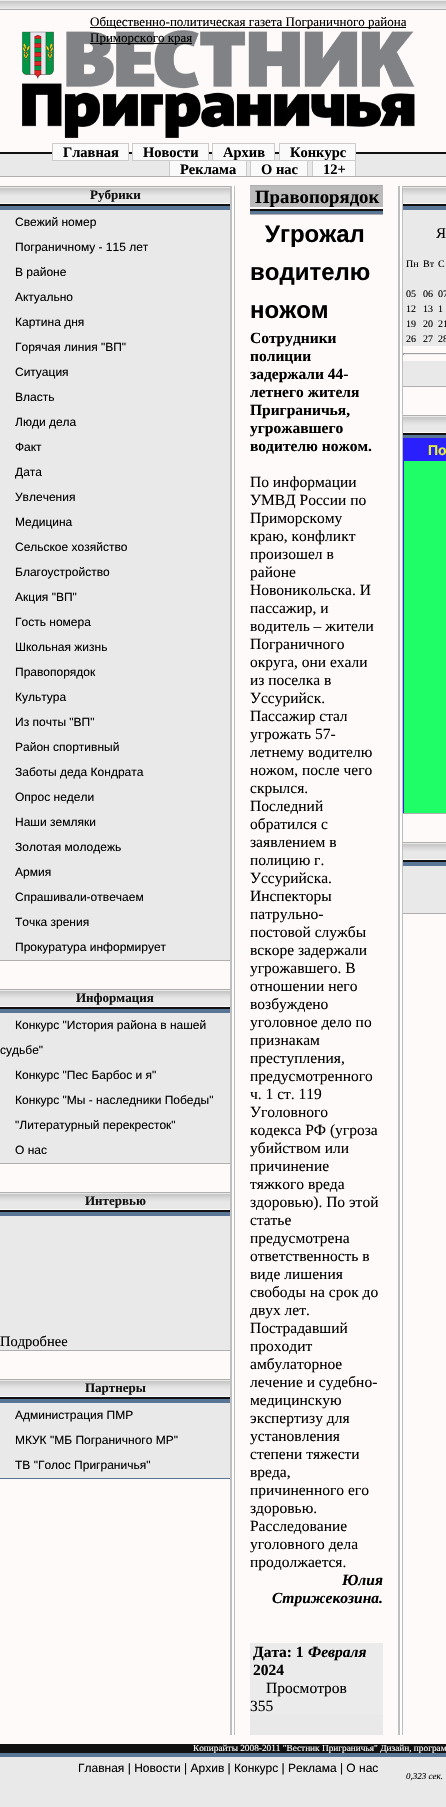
void draw(SkCanvas* canvas) {
	SkPaint fill;
	fill.setAntiAlias(true);
	auto makeFont = [&](const char* family, int weight, float size, bool italic = false) {
		SkFontStyle style(weight, SkFontStyle::kNormal_Width,
			italic ? SkFontStyle::kItalic_Slant : SkFontStyle::kUpright_Slant);
		SkFont result(fontMgr->matchFamilyStyle(family, style), size);
		result.setSubpixel(true);
		return result;
	};
	auto text = [&](const char* s, float x, float y, const SkFont& font) {
		canvas->drawString(s, x, y, font, fill);
	};
	auto box = [&](float l, float t, float r, float b) {
		canvas->drawRect(SkRect::MakeLTRB(l, t, r, b), fill);
	};
	auto picture = [&](const char* path, float l, float t, float r, float b) {
		auto image = SkImages::DeferredFromEncodedData(SkData::MakeFromFileName(path));
		canvas->drawImageRect(image, SkRect::MakeLTRB(l, t, r, b), SkSamplingOptions());
	};
	canvas->clear(0xFFE9E9E9);
	picture("image0.png", 0, 1, 446, 8);
	fill.setColor(0xFFFFFAFA);
	box(0, 10, 446, 152);
	fill.setColor(0xFFAFAFAF);
	box(0, 9, 446, 10);
	picture("image1.png", 22, 30, 415, 138);
	fill.setColor(0xFF111111);
	box(0, 152, 446, 154);
	fill.setColor(0xFF000000);
	box(90, 27, 406, 28);
	box(90, 43, 192, 44);
	fill.setColor(0xFFFAFAFA);
	canvas->drawRect(SkRect::MakeLTRB(52.5f, 143.5f, 128.5f, 160.5f), fill);
	fill.setStyle(SkPaint::kStroke_Style);
	fill.setStrokeWidth(1);
	fill.setColor(0xFFCCCCCC);
	canvas->drawRect(SkRect::MakeLTRB(52.5f, 143.5f, 128.5f, 160.5f), fill);
	fill.setStyle(SkPaint::kFill_Style);
	fill.setColor(0xFFFAFAFA);
	canvas->drawRect(SkRect::MakeLTRB(132.5f, 143.5f, 208.5f, 160.5f), fill);
	fill.setStyle(SkPaint::kStroke_Style);
	fill.setColor(0xFFCCCCCC);
	canvas->drawRect(SkRect::MakeLTRB(132.5f, 143.5f, 208.5f, 160.5f), fill);
	fill.setStyle(SkPaint::kFill_Style);
	fill.setColor(0xFFFAFAFA);
	canvas->drawRect(SkRect::MakeLTRB(212.5f, 143.5f, 274.5f, 160.5f), fill);
	fill.setStyle(SkPaint::kStroke_Style);
	fill.setColor(0xFFCCCCCC);
	canvas->drawRect(SkRect::MakeLTRB(212.5f, 143.5f, 274.5f, 160.5f), fill);
	fill.setStyle(SkPaint::kFill_Style);
	fill.setColor(0xFFFAFAFA);
	canvas->drawRect(SkRect::MakeLTRB(279.5f, 143.5f, 355.5f, 160.5f), fill);
	fill.setStyle(SkPaint::kStroke_Style);
	fill.setColor(0xFFCCCCCC);
	canvas->drawRect(SkRect::MakeLTRB(279.5f, 143.5f, 355.5f, 160.5f), fill);
	fill.setStyle(SkPaint::kFill_Style);
	fill.setColor(0xFFFAFAFA);
	box(170, 161, 246, 176);
	box(251, 161, 307, 176);
	box(313, 161, 355, 176);
	fill.setColor(0xFF111111);
	box(0, 1744, 446, 1753);
	fill.setColor(0xFF5A7696);
	box(0, 1753, 446, 1757);
	auto font1 = makeFont("Liberation Serif", 400, 13);
	fill.setColor(0xFF000000);
	text("Общественно-политическая газета Пограничного района", 90, 26, font1);
	text("Приморского края", 90, 42, font1);
	auto font2 = makeFont("Liberation Serif", 700, 14.5f);
	text("Главная", 63, 157, font2);
	text("Новости", 143, 157, font2);
	text("Архив", 223, 157, font2);
	text("Конкурс", 290, 157, font2);
	fill.setStyle(SkPaint::kStroke_Style);
	fill.setColor(0xFFCCCCCC);
	canvas->drawRect(SkRect::MakeLTRB(169.5f, 160.5f, 246.5f, 177.5f), fill);
	fill.setStyle(SkPaint::kFill_Style);
	fill.setColor(0xFF000000);
	text("Реклама", 180, 174, font2);
	fill.setStyle(SkPaint::kStroke_Style);
	fill.setColor(0xFFCCCCCC);
	canvas->drawRect(SkRect::MakeLTRB(250.5f, 160.5f, 307.5f, 177.5f), fill);
	fill.setStyle(SkPaint::kFill_Style);
	fill.setColor(0xFF000000);
	text("О нас", 261, 174, font2);
	fill.setStyle(SkPaint::kStroke_Style);
	fill.setColor(0xFFCCCCCC);
	canvas->drawRect(SkRect::MakeLTRB(312.5f, 160.5f, 355.5f, 177.5f), fill);
	fill.setStyle(SkPaint::kFill_Style);
	fill.setColor(0xFF000000);
	text("12+", 323, 174, font2);
	fill.setColor(0xFFFFFAFA);
	box(0, 177, 446, 1744);
	fill.setColor(0xFFAFAFAF);
	box(0, 176, 446, 177);
	box(0, 186, 230, 187);
	picture("image2.png", 0, 187, 230, 203);
	auto font3 = makeFont("Liberation Serif", 700, 13);
	fill.setColor(0xFF111111);
	text("Рубрики", 90, 199, font3);
	box(0, 204, 230, 206);
	fill.setColor(0xFF5A7696);
	box(0, 206, 230, 210);
	fill.setColor(0xFFE9E9E9);
	box(0, 210, 230, 960);
	auto font4 = makeFont("Liberation Sans", 400, 12);
	fill.setColor(0xFF000000);
	text("Свежий номер", 15, 226, font4);
	text("Пограничному - 115 лет", 15, 251, font4);
	text("В районе", 15, 276, font4);
	text("Актуально", 15, 301, font4);
	text("Картина дня", 15, 326, font4);
	text("Горячая линия \"ВП\"", 15, 351, font4);
	text("Ситуация", 15, 376, font4);
	text("Власть", 15, 401, font4);
	text("Люди дела", 15, 426, font4);
	text("Факт", 15, 451, font4);
	text("Дата", 15, 476, font4);
	text("Увлечения", 15, 501, font4);
	text("Медицина", 15, 526, font4);
	text("Сельское хозяйство", 15, 551, font4);
	text("Благоустройство", 15, 576, font4);
	text("Акция \"ВП\"", 15, 601, font4);
	text("Гость номера", 15, 626, font4);
	text("Школьная жизнь", 15, 651, font4);
	text("Правопорядок", 15, 676, font4);
	text("Культура", 15, 701, font4);
	text("Из почты \"ВП\"", 15, 726, font4);
	text("Район спортивный", 15, 751, font4);
	text("Заботы деда Кондрата", 15, 776, font4);
	text("Опрос недели", 15, 801, font4);
	text("Наши земляки", 15, 826, font4);
	text("Золотая молодежь", 15, 851, font4);
	text("Армия", 15, 876, font4);
	text("Спрашивали-отвечаем", 15, 901, font4);
	text("Точка зрения", 15, 926, font4);
	text("Прокуратура информирует", 15, 951, font4);
	fill.setColor(0xFFAFAFAF);
	box(0, 960, 230, 961);
	box(0, 989, 230, 990);
	picture("image2.png", 0, 990, 230, 1006);
	fill.setColor(0xFF111111);
	text("Информация", 76, 1002, font3);
	box(0, 1007, 230, 1009);
	fill.setColor(0xFF5A7696);
	box(0, 1009, 230, 1013);
	fill.setColor(0xFFE9E9E9);
	box(0, 1013, 230, 1163);
	fill.setColor(0xFF000000);
	text("Конкурс \"История района в нашей", 15, 1029, font4);
	text("судьбе\"", 0, 1054, font4);
	text("Конкурс \"Пес Барбос и я\"", 15, 1079, font4);
	text("Конкурс \"Мы - наследники Победы\"", 15, 1104, font4);
	text("\"Литературный перекресток\"", 15, 1129, font4);
	text("О нас", 15, 1154, font4);
	fill.setColor(0xFFAFAFAF);
	box(0, 1163, 230, 1164);
	box(0, 1192, 230, 1193);
	picture("image2.png", 0, 1193, 230, 1209);
	fill.setColor(0xFF111111);
	text("Интервью", 85, 1205, font3);
	box(0, 1210, 230, 1212);
	fill.setColor(0xFF5A7696);
	box(0, 1212, 230, 1216);
	fill.setColor(0xFFE9E9E9);
	box(0, 1216, 230, 1350);
	auto font5 = makeFont("Liberation Serif", 400, 14.5f);
	fill.setColor(0xFF000000);
	text("Подробнее", 0, 1346, font5);
	fill.setColor(0xFFAFAFAF);
	box(0, 1350, 230, 1351);
	box(0, 1379, 230, 1380);
	picture("image2.png", 0, 1380, 230, 1396);
	fill.setColor(0xFF111111);
	text("Партнеры", 85, 1392, font3);
	box(0, 1397, 230, 1399);
	fill.setColor(0xFF5A7696);
	box(0, 1399, 230, 1403);
	fill.setColor(0xFFE9E9E9);
	box(0, 1403, 230, 1478);
	fill.setColor(0xFF000000);
	text("Администрация ПМР", 15, 1419, font4);
	text("МКУК \"МБ Пограничного МР\"", 15, 1444, font4);
	text("ТВ \"Голос Приграничья\"", 15, 1469, font4);
	fill.setColor(0xFF5A7696);
	box(0, 1478, 230, 1479);
	picture("image3.png", 230, 186, 235, 1735);
	fill.setColor(0xFFE9E9E9);
	box(250, 1715, 383, 1735);
	fill.setColor(0xFFAFAFAF);
	box(250, 185, 383, 186);
	fill.setColor(0xFFBBBBBB);
	box(250, 186, 383, 207);
	auto font6 = makeFont("Liberation Serif", 700, 18.75f);
	fill.setColor(0xFF000000);
	text("Правопорядок", 255, 203, font6);
	fill.setColor(0xFF111111);
	box(250, 209, 383, 211);
	fill.setColor(0xFF5A7696);
	box(250, 211, 383, 214);
	fill.setColor(0xFFAFAFAF);
	box(250, 214, 383, 215);
	auto font7 = makeFont("Liberation Sans", 700, 24);
	fill.setColor(0xFF000000);
	text("Угрожал", 265, 242, font7);
	text("водителю", 250, 280, font7);
	text("ножом", 250, 318, font7);
	auto font8 = makeFont("Liberation Serif", 700, 15.5f);
	text("Сотрудники", 250, 343, font8);
	text("полиции", 250, 361, font8);
	text("задержали 44-", 250, 379, font8);
	text("летнего жителя", 250, 397, font8);
	text("Приграничья,", 250, 415, font8);
	text("угрожавшего", 250, 433, font8);
	text("водителю ножом.", 250, 451, font8);
	auto font9 = makeFont("Liberation Serif", 400, 15.5f);
	text("По информации", 250, 487, font9);
	text("УМВД России по", 250, 505, font9);
	text("Приморскому", 250, 523, font9);
	text("краю, конфликт", 250, 541, font9);
	text("произошел в", 250, 559, font9);
	text("районе", 250, 577, font9);
	text("Новоникольска. И", 250, 595, font9);
	text("пассажир, и", 250, 613, font9);
	text("водитель – жители", 250, 631, font9);
	text("Пограничного", 250, 649, font9);
	text("округа, они ехали", 250, 667, font9);
	text("из поселка в", 250, 685, font9);
	text("Уссурийск.", 250, 703, font9);
	text("Пассажир стал", 250, 721, font9);
	text("угрожать 57-", 250, 739, font9);
	text("летнему водителю", 250, 757, font9);
	text("ножом, после чего", 250, 775, font9);
	text("скрылся.", 250, 793, font9);
	text("Последний", 250, 811, font9);
	text("обратился с", 250, 829, font9);
	text("заявлением в", 250, 847, font9);
	text("полицию г.", 250, 865, font9);
	text("Уссурийска.", 250, 883, font9);
	text("Инспекторы", 250, 901, font9);
	text("патрульно-", 250, 919, font9);
	text("постовой службы", 250, 937, font9);
	text("вскоре задержали", 250, 955, font9);
	text("угрожавшего. В", 250, 973, font9);
	text("отношении него", 250, 991, font9);
	text("возбуждено", 250, 1009, font9);
	text("уголовное дело по", 250, 1027, font9);
	text("признакам", 250, 1045, font9);
	text("преступления,", 250, 1063, font9);
	text("предусмотренного", 250, 1081, font9);
	text("ч. 1 ст. 119", 250, 1099, font9);
	text("Уголовного", 250, 1117, font9);
	text("кодекса РФ (угроза", 250, 1135, font9);
	text("убийством или", 250, 1153, font9);
	text("причинение", 250, 1171, font9);
	text("тяжкого вреда", 250, 1189, font9);
	text("здоровью). По этой", 250, 1207, font9);
	text("статье", 250, 1225, font9);
	text("предусмотрена", 250, 1243, font9);
	text("ответственность в", 250, 1261, font9);
	text("виде лишения", 250, 1279, font9);
	text("свободы на срок до", 250, 1297, font9);
	text("двух лет.", 250, 1315, font9);
	text("Пострадавший", 250, 1333, font9);
	text("проходит", 250, 1351, font9);
	text("амбулаторное", 250, 1369, font9);
	text("лечение и судебно-", 250, 1387, font9);
	text("медицинскую", 250, 1405, font9);
	text("экспертизу для", 250, 1423, font9);
	text("установления", 250, 1441, font9);
	text("степени тяжести", 250, 1459, font9);
	text("вреда,", 250, 1477, font9);
	text("причиненного его", 250, 1495, font9);
	text("здоровью.", 250, 1513, font9);
	text("Расследование", 250, 1531, font9);
	text("уголовного дела", 250, 1549, font9);
	text("продолжается.", 250, 1567, font9);
	auto font10 = makeFont("Liberation Serif", 700, 15.5f, true);
	text("Юлия", 342, 1585, font10);
	text("Стрижекозина.", 272, 1603, font10);
	fill.setColor(0xFFEBEBEB);
	box(250, 1643, 383, 1715);
	fill.setColor(0xFF000000);
	text("Дата: 1", 253, 1657, font8);
	text("Февраля", 308, 1657, font10);
	text("2024", 253, 1675, font8);
	text("Просмотров", 266, 1693, font9);
	text("355", 250, 1711, font9);
	picture("image3.png", 398, 186, 403, 1735);
	fill.setColor(0xFFAFAFAF);
	box(403, 186, 446, 187);
	picture("image4.png", 403, 187, 446, 203);
	fill.setColor(0xFF111111);
	box(403, 204, 446, 206);
	fill.setColor(0xFF5A7696);
	box(403, 206, 446, 210);
	fill.setColor(0xFFE9E9E9);
	box(403, 210, 446, 346);
	auto font11 = makeFont("Liberation Serif", 400, 15);
	fill.setColor(0xFF000000);
	text("Я", 436, 238, font11);
	auto font12 = makeFont("Liberation Serif", 400, 10);
	text("Пн", 406, 267, font12);
	text("Вт", 423, 267, font12);
	text("С", 438, 267, font12);
	text("05", 406, 297, font12);
	text("06", 423, 297, font12);
	text("07", 438, 297, font12);
	text("12", 406, 312, font12);
	text("13", 423, 312, font12);
	text("1", 438, 312, font12);
	text("19", 406, 327, font12);
	text("20", 423, 327, font12);
	text("21", 438, 327, font12);
	text("26", 406, 342, font12);
	text("27", 423, 342, font12);
	text("28", 438, 342, font12);
	fill.setColor(0xFF9F9F9F);
	box(403, 353, 446, 354);
	fill.setColor(0xFFEEEEEE);
	box(403, 354, 446, 355);
	fill.setColor(0xFF9F9F9F);
	box(403, 353, 404, 355);
	fill.setColor(0xFFE9E9E9);
	box(403, 361, 446, 386);
	fill.setColor(0xFFAFAFAF);
	box(403, 386, 446, 387);
	box(403, 415, 446, 416);
	picture("image4.png", 403, 416, 446, 432);
	fill.setColor(0xFF111111);
	box(403, 433, 446, 435);
	fill.setColor(0xFF5A7696);
	box(403, 435, 446, 438);
	fill.setColor(0xFF20FE67);
	box(404, 461, 446, 813);
	fill.setStyle(SkPaint::kStroke_Style);
	fill.setColor(0xFF2A20FE);
	canvas->drawRect(SkRect::MakeLTRB(403.5f, 438.5f, 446.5f, 813.5f), fill);
	fill.setStyle(SkPaint::kFill_Style);
	box(404, 439, 446, 461);
	auto font13 = makeFont("Liberation Sans", 700, 14);
	fill.setColor(0xFFE4EF39);
	text("По", 428, 455, font13);
	fill.setColor(0xFFAFAFAF);
	box(403, 813, 446, 814);
	box(403, 842, 446, 843);
	picture("image4.png", 403, 843, 446, 859);
	fill.setColor(0xFF111111);
	box(403, 860, 446, 862);
	fill.setColor(0xFF5A7696);
	box(403, 862, 446, 866);
	fill.setColor(0xFFE9E9E9);
	box(403, 866, 446, 913);
	fill.setColor(0xFFAFAFAF);
	box(403, 913, 446, 914);
	auto font14 = makeFont("Liberation Serif", 400, 9.3f);
	fill.setColor(0xFFFFFFFF);
	text("Копирайты 2008-2011 \"Вестник Приграничья\" Дизайн, програм", 193, 1751, font14);
	fill.setColor(0xFF000000);
	text("Главная | Новости | Архив | Конкурс | Реклама | О нас", 78, 1772, font4);
	auto font15 = makeFont("Liberation Serif", 400, 9, true);
	text("0,323 сек.", 406, 1779, font15);
}
